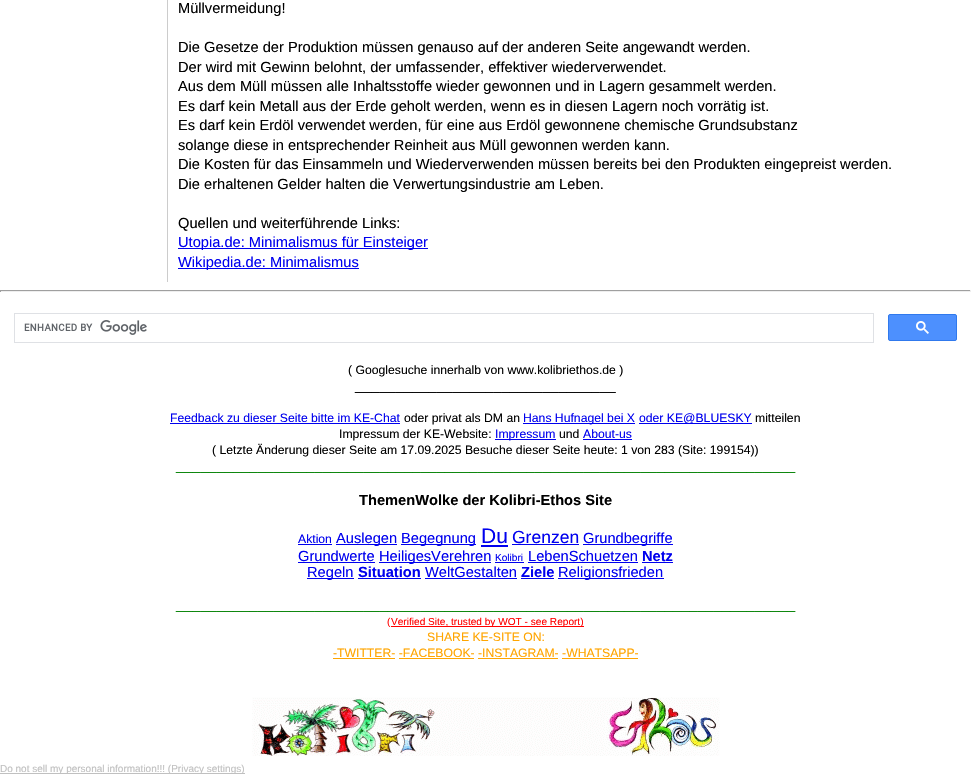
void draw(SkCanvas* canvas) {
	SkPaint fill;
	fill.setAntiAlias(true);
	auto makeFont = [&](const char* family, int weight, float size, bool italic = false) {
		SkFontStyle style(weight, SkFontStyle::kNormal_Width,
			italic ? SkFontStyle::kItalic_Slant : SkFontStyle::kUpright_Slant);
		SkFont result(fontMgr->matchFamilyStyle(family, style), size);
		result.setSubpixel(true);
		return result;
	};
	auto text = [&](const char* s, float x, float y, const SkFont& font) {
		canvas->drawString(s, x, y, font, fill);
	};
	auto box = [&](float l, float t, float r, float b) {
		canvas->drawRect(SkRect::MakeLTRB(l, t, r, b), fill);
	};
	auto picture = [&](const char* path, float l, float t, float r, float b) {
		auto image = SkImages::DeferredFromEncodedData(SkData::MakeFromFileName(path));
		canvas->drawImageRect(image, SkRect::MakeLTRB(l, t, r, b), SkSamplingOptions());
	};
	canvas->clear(0xFFFFFFFF);
	fill.setColor(0xFFCCCCCC);
	box(167, 0, 168, 282);
	fill.setColor(0xFF0000EE);
	box(178, 248, 428, 249);
	box(178, 268, 359, 269);
	fill.setColor(0xFF9F9F9F);
	box(0, 290, 971, 291);
	fill.setColor(0xFFEEEEEE);
	box(970, 290, 971, 292);
	box(0, 291, 971, 292);
	fill.setColor(0xFF9F9F9F);
	box(0, 290, 1, 292);
	fill.setStyle(SkPaint::kStroke_Style);
	fill.setStrokeWidth(1);
	fill.setColor(0xFFDFE1E5);
	canvas->drawRect(SkRect::MakeLTRB(14.5f, 313.5f, 873.5f, 342.5f), fill);
	picture("image0.png", 24, 320, 147, 335);
	fill.setStyle(SkPaint::kFill_Style);
	fill.setColor(0xFF4D90FE);
	canvas->drawRoundRect(SkRect::MakeLTRB(888.5f, 314.5f, 956.5f, 340.5f), 1.5f, 1.5f, fill);
	fill.setStyle(SkPaint::kStroke_Style);
	fill.setColor(0xFF3079ED);
	canvas->drawRoundRect(SkRect::MakeLTRB(888.5f, 314.5f, 956.5f, 340.5f), 1.5f, 1.5f, fill);
	picture("image1.png", 916, 321, 929, 334);
	fill.setStyle(SkPaint::kFill_Style);
	fill.setColor(0xFF0000EE);
	box(170, 423, 400, 424);
	box(523, 423, 635, 424);
	box(639, 423, 752, 424);
	box(495, 439, 556, 440);
	box(583, 439, 632, 440);
	box(298, 544, 332, 545);
	box(336, 544, 397, 545);
	box(401, 544, 476, 545);
	box(481, 545, 508, 547);
	box(512, 544, 579, 545);
	box(583, 544, 673, 545);
	box(298, 562, 375, 563);
	box(379, 562, 491, 563);
	box(495, 562, 524, 563);
	box(528, 562, 638, 563);
	box(642, 562, 673, 563);
	box(307, 578, 354, 579);
	box(358, 578, 421, 579);
	box(425, 578, 517, 579);
	box(521, 578, 554, 579);
	box(558, 578, 664, 579);
	fill.setColor(0xFFFF0000);
	box(391, 626, 584, 627);
	fill.setColor(0xFFFFA500);
	box(333, 658, 395, 659);
	box(399, 658, 474, 659);
	box(478, 658, 558, 659);
	box(562, 658, 638, 659);
	picture("image2.png", 252, 697, 720, 756);
	fill.setColor(0xFFC0C0C0);
	box(0, 773, 245, 774);
	auto font1 = makeFont("Liberation Sans", 400, 14.65f);
	fill.setColor(0xFF000000);
	text("Müllvermeidung!", 178, 13, font1);
	text("Die Gesetze der Produktion müssen genauso auf der anderen Seite angewandt werden.", 178, 52, font1);
	text("Der wird mit Gewinn belohnt, der umfassender, effektiver wiederverwendet.", 178, 72, font1);
	text("Aus dem Müll müssen alle Inhaltsstoffe wieder gewonnen und in Lagern gesammelt werden.", 178, 91, font1);
	text("Es darf kein Metall aus der Erde geholt werden, wenn es in diesen Lagern noch vorrätig ist.", 178, 111, font1);
	text("Es darf kein Erdöl verwendet werden, für eine aus Erdöl gewonnene chemische Grundsubstanz", 178, 130, font1);
	text("solange diese in entsprechender Reinheit aus Müll gewonnen werden kann.", 178, 150, font1);
	text("Die Kosten für das Einsammeln und Wiederverwenden müssen bereits bei den Produkten eingepreist werden.", 178, 169, font1);
	text("Die erhaltenen Gelder halten die Verwertungsindustrie am Leben.", 178, 189, font1);
	text("Quellen und weiterführende Links:", 178, 228, font1);
	fill.setColor(0xFF0000EE);
	text("Utopia.de: Minimalismus für Einsteiger", 178, 247, font1);
	text("Wikipedia.de: Minimalismus", 178, 267, font1);
	auto font2 = makeFont("Liberation Sans", 400, 12.2f);
	fill.setColor(0xFF000000);
	text("( Googlesuche innerhalb von www.kolibriethos.de )", 348, 374, font2);
	text("________________________________", 355, 390, font1);
	fill.setColor(0xFF0000EE);
	text("Feedback zu dieser Seite bitte im KE-Chat", 170, 422, font2);
	fill.setColor(0xFF000000);
	text("oder privat als DM an", 404, 422, font2);
	fill.setColor(0xFF0000EE);
	text("Hans Hufnagel bei X", 523, 422, font2);
	text("oder KE@BLUESKY", 639, 422, font2);
	fill.setColor(0xFF000000);
	text("mitteilen", 755, 422, font2);
	text("Impressum der KE-Website:", 339, 438, font2);
	fill.setColor(0xFF0000EE);
	text("Impressum", 495, 438, font2);
	fill.setColor(0xFF000000);
	text("und", 559, 438, font2);
	fill.setColor(0xFF0000EE);
	text("About-us", 583, 438, font2);
	fill.setColor(0xFF000000);
	text("( Letzte Änderung dieser Seite am 17.09.2025 Besuche dieser Seite heute: 1 von 283 (Site: 199154))", 212, 454, font2);
	fill.setColor(0xFF008000);
	text("____________________________________________________________________________", 176, 470, font1);
	auto font3 = makeFont("Liberation Sans", 700, 14.65f);
	fill.setColor(0xFF000000);
	text("ThemenWolke der Kolibri-Ethos Site", 359, 505, font3);
	fill.setColor(0xFF0000EE);
	text("Aktion", 298, 543, font2);
	text("Auslegen", 336, 543, font1);
	text("Begegnung", 401, 543, font1);
	auto font4 = makeFont("Liberation Sans", 400, 21);
	text("Du", 481, 543, font4);
	auto font5 = makeFont("Liberation Sans", 400, 17.5f);
	text("Grenzen", 512, 543, font5);
	text("Grundbegriffe", 583, 543, font1);
	text("Grundwerte", 298, 561, font1);
	text("HeiligesVerehren", 379, 561, font1);
	auto font6 = makeFont("Liberation Sans", 400, 10.1f);
	text("Kolibri", 495, 561, font6);
	text("LebenSchuetzen", 528, 561, font1);
	text("Netz", 642, 561, font3);
	text("Regeln", 307, 577, font1);
	text("Situation", 358, 577, font3);
	text("WeltGestalten", 425, 577, font1);
	text("Ziele", 521, 577, font3);
	text("Religionsfrieden", 558, 577, font1);
	fill.setColor(0xFF008000);
	text("____________________________________________________________________________", 176, 609, font1);
	fill.setColor(0xFFFF0000);
	text("(", 387, 625, font6);
	text("Verified Site, trusted by WOT - see Report)", 391, 625, font6);
	fill.setColor(0xFFFFA500);
	text("SHARE KE-SITE ON:", 427, 641, font2);
	text("-TWITTER- -FACEBOOK- -INSTAGRAM- -WHATSAPP-", 333, 657, font2);
	auto font7 = makeFont("Liberation Sans", 400, 10);
	fill.setColor(0xFFC0C0C0);
	text("Do not sell my personal information!!! (Privacy settings)", 0, 772, font7);
}
